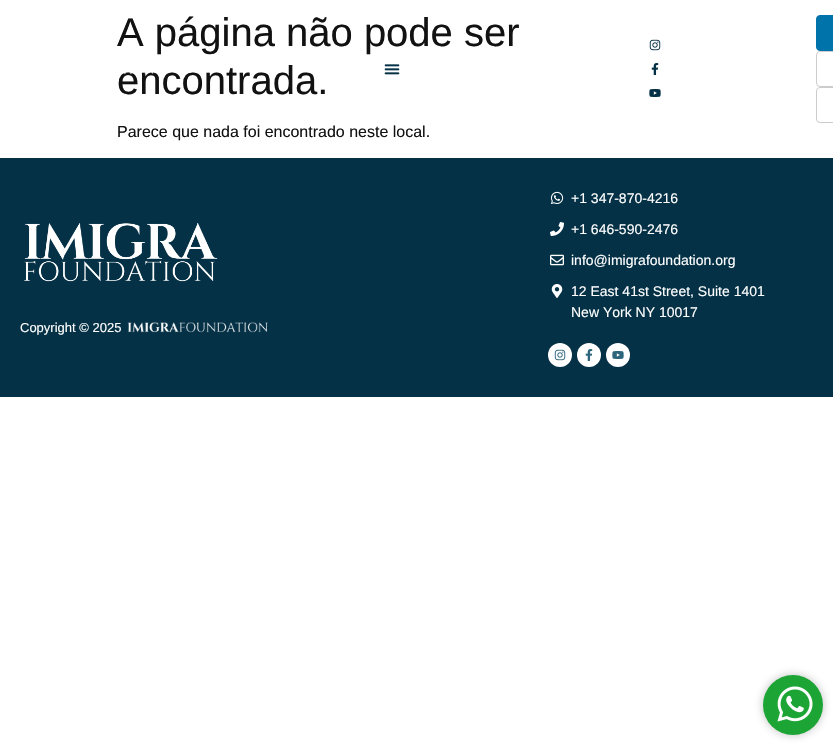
void draw(SkCanvas* canvas) {
	SkPaint fill;
	fill.setAntiAlias(true);
	auto makeFont = [&](const char* family, int weight, float size, bool italic = false) {
		SkFontStyle style(weight, SkFontStyle::kNormal_Width,
			italic ? SkFontStyle::kItalic_Slant : SkFontStyle::kUpright_Slant);
		SkFont result(fontMgr->matchFamilyStyle(family, style), size);
		result.setSubpixel(true);
		return result;
	};
	auto text = [&](const char* s, float x, float y, const SkFont& font) {
		canvas->drawString(s, x, y, font, fill);
	};
	auto box = [&](float l, float t, float r, float b) {
		canvas->drawRect(SkRect::MakeLTRB(l, t, r, b), fill);
	};
	auto picture = [&](const char* path, float l, float t, float r, float b) {
		auto image = SkImages::DeferredFromEncodedData(SkData::MakeFromFileName(path));
		canvas->drawImageRect(image, SkRect::MakeLTRB(l, t, r, b), SkSamplingOptions());
	};
	canvas->clear(0xFFFFFFFF);
	picture("image1.png", 384, 64, 400, 75);
	picture("image2.png", 649, 39, 661, 51);
	picture("image3.png", 651, 63, 659, 75);
	picture("image4.png", 649, 89, 661, 97);
	fill.setColor(0xFF0073AA);
	canvas->drawRoundRect(SkRect::MakeLTRB(816.5f, 15.5f, 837.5f, 50.5f), 3.5f, 3.5f, fill);
	fill.setStyle(SkPaint::kStroke_Style);
	fill.setStrokeWidth(1);
	canvas->drawRoundRect(SkRect::MakeLTRB(816.5f, 15.5f, 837.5f, 50.5f), 3.5f, 3.5f, fill);
	fill.setColor(0xFFCCCCCC);
	canvas->drawRoundRect(SkRect::MakeLTRB(816.5f, 51.5f, 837.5f, 86.5f), 3.5f, 3.5f, fill);
	canvas->drawRoundRect(SkRect::MakeLTRB(816.5f, 87.5f, 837.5f, 122.5f), 3.5f, 3.5f, fill);
	fill.setStyle(SkPaint::kFill_Style);
	fill.setColor(0xFF053146);
	box(0, 158, 833, 397);
	picture("image5.png", 550, 191, 564, 204);
	picture("image6.png", 550, 222, 564, 236);
	picture("image7.png", 550, 254, 564, 266);
	picture("image8.png", 551, 284, 563, 298);
	fill.setColor(0xFFFFFFFF);
	canvas->drawCircle(560, 355, 12, fill);
	picture("image9.png", 554, 349, 566, 361);
	canvas->drawCircle(589, 355, 12, fill);
	picture("image10.png", 585, 349, 593, 361);
	canvas->drawCircle(618, 355, 12, fill);
	picture("image11.png", 612, 351, 624, 359);
	picture("image12.png", 24, 223, 218, 282);
	picture("image13.png", 127, 322, 268, 333);
	fill.setColor(0x80818181);
	fill.setMaskFilter(SkMaskFilter::MakeBlur(kNormal_SkBlurStyle, 5));
	canvas->drawRoundRect(SkRect::MakeLTRB(763, 675, 823, 735), 30, 30, fill);
	fill.setMaskFilter(nullptr);
	fill.setColor(0xFF1CA534);
	canvas->drawCircle(793, 705, 30, fill);
	picture("image14.png", 777, 686, 813, 722);
	auto font1 = makeFont("Liberation Sans", 400, 40);
	fill.setColor(0xFF121212);
	text("A página não pode ser", 117, 46, font1);
	text("encontrada.", 117, 94, font1);
	picture("image0.png", 123, 72, 153, 75);
	auto font2 = makeFont("Liberation Sans", 400, 16);
	text("Parece que nada foi encontrado neste local.", 117, 137, font2);
	auto font3 = makeFont("Liberation Sans", 400, 14);
	fill.setColor(0xFFFFFFFF);
	text("+1 347-870-4216", 571, 203, font3);
	text("+1 646-590-2476", 571, 234, font3);
	text("info@imigrafoundation.org", 571, 265, font3);
	text("12 East 41st Street, Suite 1401", 571, 296, font3);
	text("New York NY 10017", 571, 317, font3);
	auto font4 = makeFont("Liberation Sans", 400, 13);
	text("Copyright © 2025", 20, 332, font4);
}
